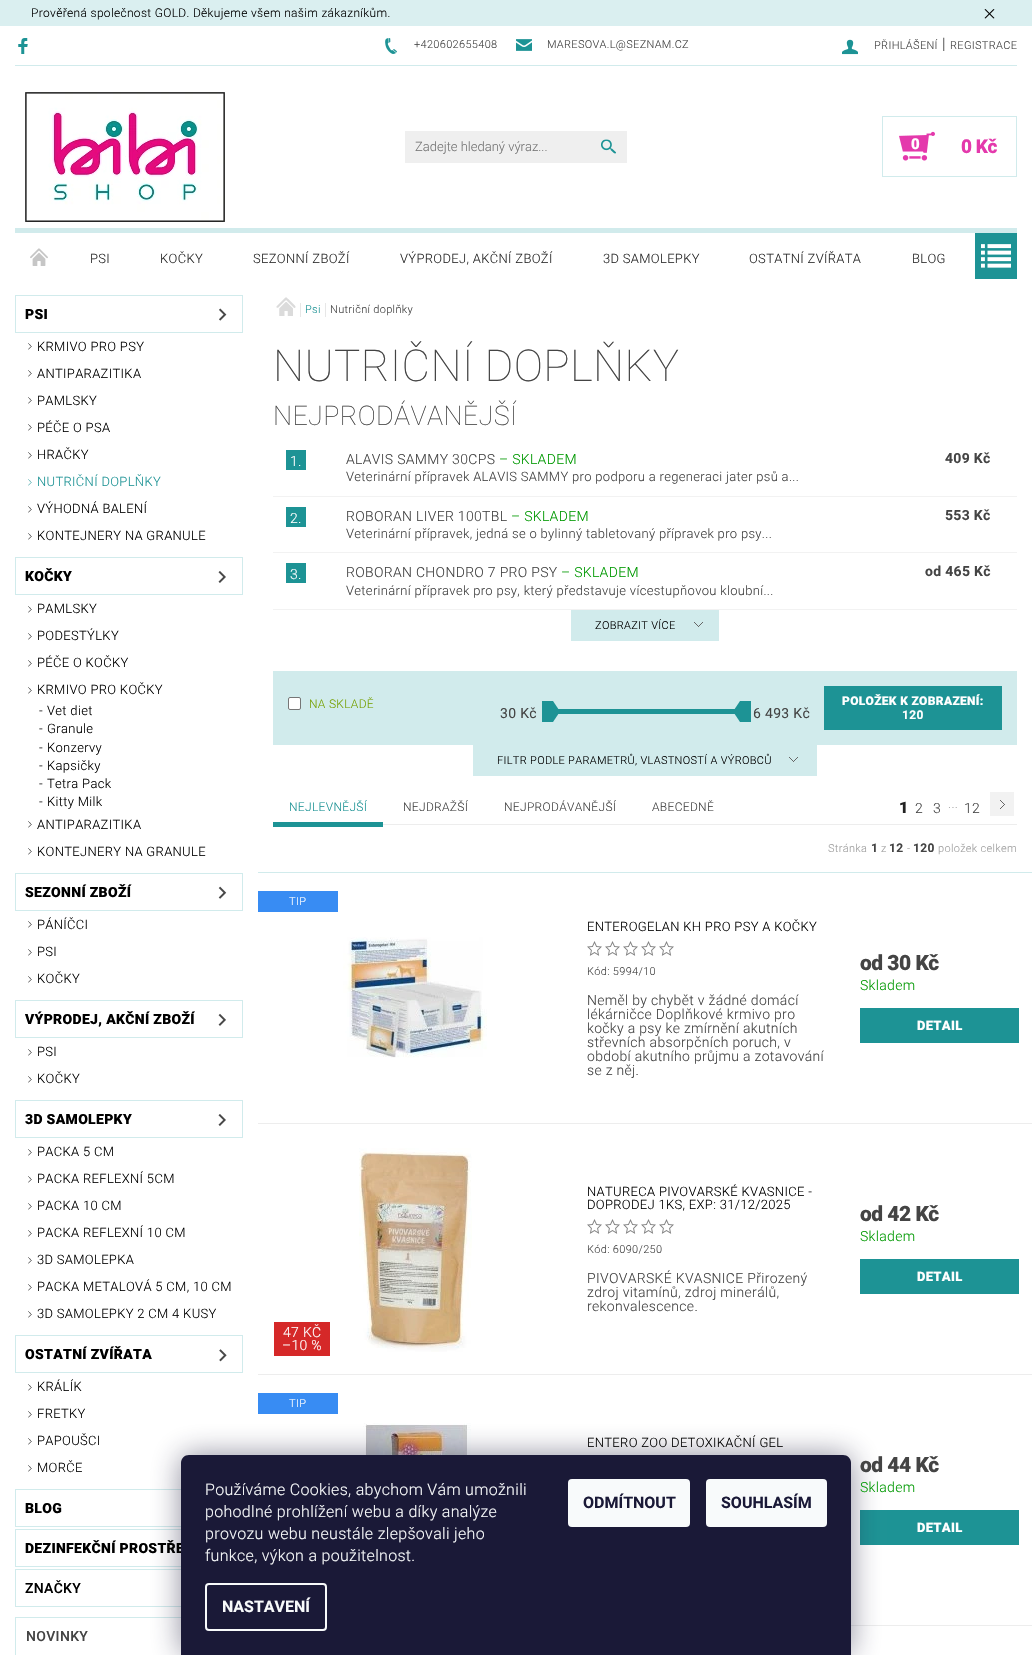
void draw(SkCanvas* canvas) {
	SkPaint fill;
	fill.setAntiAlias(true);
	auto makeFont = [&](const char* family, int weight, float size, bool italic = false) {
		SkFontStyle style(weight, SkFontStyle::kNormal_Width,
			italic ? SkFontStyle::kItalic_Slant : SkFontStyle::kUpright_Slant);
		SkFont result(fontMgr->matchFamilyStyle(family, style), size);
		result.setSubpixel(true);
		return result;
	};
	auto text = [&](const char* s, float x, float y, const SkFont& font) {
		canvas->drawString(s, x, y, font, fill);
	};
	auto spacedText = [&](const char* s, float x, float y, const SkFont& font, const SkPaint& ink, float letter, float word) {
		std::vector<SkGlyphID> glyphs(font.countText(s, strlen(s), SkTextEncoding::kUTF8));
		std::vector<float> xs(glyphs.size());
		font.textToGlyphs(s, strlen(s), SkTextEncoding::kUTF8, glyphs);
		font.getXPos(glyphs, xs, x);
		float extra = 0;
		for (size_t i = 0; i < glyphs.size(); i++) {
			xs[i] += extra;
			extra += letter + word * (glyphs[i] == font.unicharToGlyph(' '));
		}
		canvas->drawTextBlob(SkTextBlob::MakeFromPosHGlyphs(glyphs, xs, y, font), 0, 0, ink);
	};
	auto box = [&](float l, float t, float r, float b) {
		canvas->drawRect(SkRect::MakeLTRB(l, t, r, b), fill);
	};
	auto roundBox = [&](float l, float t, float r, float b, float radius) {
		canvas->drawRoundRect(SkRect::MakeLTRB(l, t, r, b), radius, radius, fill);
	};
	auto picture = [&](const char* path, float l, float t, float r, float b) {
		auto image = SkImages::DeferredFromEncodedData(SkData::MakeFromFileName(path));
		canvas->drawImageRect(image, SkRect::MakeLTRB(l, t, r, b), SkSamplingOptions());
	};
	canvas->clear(0xFFFFFFFF);
	fill.setColor(0xFFDAEFF0);
	box(0, 0, 1032, 26);
	fill.setColor(0xFF000000);
	canvas->drawPath(SkPathBuilder().moveTo(985.5f, 9).lineTo(994.5f, 18).lineTo(993.5f, 18.5f).lineTo(984.5f, 9.5f).close().detach(), fill);
	canvas->drawPath(SkPathBuilder().moveTo(993.5f, 9).lineTo(994.5f, 9.5f).lineTo(985.5f, 18.5f).lineTo(984.5f, 18).close().detach(), fill);
	fill.setColor(0xFFD1EBEC);
	box(15, 65, 1017, 66);
	picture("image0.png", 18, 38, 28, 54);
	picture("image1.png", 385, 38, 397, 54);
	picture("image2.png", 516, 39, 532, 51);
	picture("image3.png", 842, 39, 858, 55);
	picture("image4.png", 25, 92, 225, 222);
	fill.setColor(0xFFEFEFEF);
	box(405, 131, 627, 163);
	fill.setColor(0xFF1D9395);
	box(601, 139, 616, 154);
	picture("image5.png", 601, 138, 617, 155);
	fill.setStyle(SkPaint::kStroke_Style);
	fill.setStrokeWidth(1);
	fill.setColor(0xFFD1EBEC);
	canvas->drawRect(SkRect::MakeLTRB(882.5f, 116.5f, 1016.5f, 176.5f), fill);
	picture("image6.png", 899, 131, 935, 161);
	fill.setStyle(SkPaint::kFill_Style);
	box(15, 228, 1017, 233);
	picture("image7.png", 30, 248, 48, 266);
	fill.setColor(0xFF1D9395);
	box(975, 233, 1017, 279);
	picture("image8.png", 981, 244, 1011, 268);
	fill.setStyle(SkPaint::kStroke_Style);
	fill.setColor(0xFFD1EBEC);
	canvas->drawRect(SkRect::MakeLTRB(15.5f, 295.5f, 242.5f, 332.5f), fill);
	picture("image9.png", 219, 308, 227, 321);
	picture("image10.png", 28, 343, 32, 350);
	picture("image10.png", 28, 370, 32, 377);
	picture("image10.png", 28, 397, 32, 404);
	picture("image10.png", 28, 424, 32, 431);
	picture("image10.png", 28, 452, 32, 459);
	picture("image11.png", 28, 479, 32, 486);
	picture("image10.png", 28, 506, 32, 513);
	picture("image10.png", 28, 533, 32, 540);
	canvas->drawRect(SkRect::MakeLTRB(15.5f, 557.5f, 242.5f, 594.5f), fill);
	picture("image12.png", 218, 571, 226, 583);
	picture("image10.png", 28, 606, 32, 613);
	picture("image10.png", 28, 633, 32, 640);
	picture("image10.png", 28, 660, 32, 667);
	picture("image10.png", 28, 687, 32, 694);
	picture("image10.png", 28, 821, 32, 828);
	picture("image10.png", 28, 848, 32, 855);
	canvas->drawRect(SkRect::MakeLTRB(15.5f, 873.5f, 242.5f, 910.5f), fill);
	picture("image13.png", 218, 886, 227, 899);
	picture("image10.png", 28, 921, 32, 928);
	picture("image10.png", 28, 949, 32, 956);
	picture("image10.png", 28, 976, 32, 983);
	canvas->drawRect(SkRect::MakeLTRB(15.5f, 1000.5f, 242.5f, 1037.5f), fill);
	picture("image14.png", 218, 1013, 226, 1026);
	picture("image10.png", 28, 1049, 32, 1056);
	picture("image10.png", 28, 1076, 32, 1083);
	canvas->drawRect(SkRect::MakeLTRB(15.5f, 1100.5f, 242.5f, 1137.5f), fill);
	picture("image15.png", 218, 1114, 226, 1126);
	picture("image10.png", 28, 1149, 32, 1156);
	picture("image10.png", 28, 1176, 32, 1183);
	picture("image10.png", 28, 1203, 32, 1210);
	picture("image10.png", 28, 1230, 32, 1237);
	picture("image10.png", 28, 1257, 32, 1264);
	picture("image10.png", 28, 1284, 32, 1291);
	picture("image10.png", 28, 1311, 32, 1318);
	canvas->drawRect(SkRect::MakeLTRB(15.5f, 1335.5f, 242.5f, 1372.5f), fill);
	picture("image16.png", 219, 1349, 227, 1362);
	picture("image10.png", 28, 1384, 32, 1391);
	picture("image10.png", 28, 1411, 32, 1418);
	picture("image10.png", 28, 1438, 32, 1445);
	picture("image10.png", 28, 1465, 32, 1472);
	canvas->drawRect(SkRect::MakeLTRB(15.5f, 1489.5f, 242.5f, 1526.5f), fill);
	canvas->drawRect(SkRect::MakeLTRB(15.5f, 1529.5f, 242.5f, 1566.5f), fill);
	canvas->drawRect(SkRect::MakeLTRB(15.5f, 1569.5f, 242.5f, 1606.5f), fill);
	canvas->drawRect(SkRect::MakeLTRB(15.5f, 1617.5f, 242.5f, 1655.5f), fill);
	picture("image17.png", 276, 297, 296, 316);
	fill.setStyle(SkPaint::kFill_Style);
	fill.setColor(0xFFE7E7E7);
	box(300, 303, 301, 317);
	box(325, 303, 326, 317);
	fill.setColor(0xFFF2F2F2);
	box(273, 496, 1017, 497);
	fill.setColor(0xFF1D9395);
	box(286, 450, 306, 470);
	fill.setColor(0xFFF2F2F2);
	box(273, 552, 1017, 553);
	fill.setColor(0xFF1D9395);
	box(286, 507, 306, 527);
	fill.setColor(0xFFF2F2F2);
	box(273, 609, 1017, 610);
	fill.setColor(0xFF1D9395);
	box(286, 563, 306, 583);
	fill.setColor(0xFFD1EBEC);
	box(571, 610, 719, 641);
	picture("image18.png", 694, 622, 703, 627);
	box(273, 671, 1017, 745);
	fill.setColor(0xFFFFFFFF);
	canvas->drawRoundRect(SkRect::MakeLTRB(288.5f, 697.5f, 300.5f, 709.5f), 1.5f, 1.5f, fill);
	fill.setStyle(SkPaint::kStroke_Style);
	fill.setColor(0xFF767676);
	canvas->drawRoundRect(SkRect::MakeLTRB(288.5f, 697.5f, 300.5f, 709.5f), 1.5f, 1.5f, fill);
	fill.setStyle(SkPaint::kFill_Style);
	fill.setColor(0xFF1D9395);
	box(824, 686, 1002, 730);
	box(553, 709, 737, 714);
	canvas->drawPath(SkPathBuilder().moveTo(553, 722).lineTo(553, 701).lineTo(559, 710).lineTo(559, 713).close().detach(), fill);
	box(542, 701, 553, 722);
	canvas->drawPath(SkPathBuilder().moveTo(740, 701).lineTo(740, 722).lineTo(734, 713).lineTo(734, 710).close().detach(), fill);
	box(740, 701, 751, 722);
	fill.setColor(0xFFD1EBEC);
	box(473, 745, 817, 776);
	picture("image18.png", 789, 757, 798, 762);
	fill.setColor(0xFFEDEDED);
	box(383, 824, 1017, 825);
	fill.setColor(0xFF1D9395);
	box(273, 822, 383, 827);
	fill.setColor(0xFFF2F2F2);
	box(990, 792, 1014, 816);
	picture("image19.png", 1000, 800, 1005, 809);
	fill.setColor(0xFFD1EBEC);
	box(258, 872, 1032, 873);
	fill.setColor(0xFFEDEDED);
	box(258, 1123, 1032, 1124);
	fill.setColor(0xFF388CF3);
	box(258, 891, 338, 912);
	picture("image20.png", 343, 937, 487, 1058);
	picture("image21.png", 587, 941, 602, 956);
	picture("image21.png", 605, 941, 620, 956);
	picture("image21.png", 623, 941, 638, 956);
	picture("image21.png", 641, 941, 656, 956);
	picture("image21.png", 659, 941, 674, 956);
	fill.setStyle(SkPaint::kStroke_Style);
	fill.setColor(0xFF1D9395);
	canvas->drawRect(SkRect::MakeLTRB(860.5f, 1008.5f, 1018.5f, 1042.5f), fill);
	fill.setStyle(SkPaint::kFill_Style);
	box(861, 1009, 1018, 1042);
	fill.setColor(0xFFEDEDED);
	box(258, 1374, 1032, 1375);
	picture("image21.png", 587, 1219, 602, 1234);
	picture("image21.png", 605, 1219, 620, 1234);
	picture("image21.png", 623, 1219, 638, 1234);
	picture("image21.png", 641, 1219, 656, 1234);
	picture("image21.png", 659, 1219, 674, 1234);
	fill.setStyle(SkPaint::kStroke_Style);
	fill.setColor(0xFF1D9395);
	canvas->drawRect(SkRect::MakeLTRB(860.5f, 1259.5f, 1018.5f, 1293.5f), fill);
	fill.setStyle(SkPaint::kFill_Style);
	box(861, 1260, 1018, 1293);
	fill.setColor(0xFFD52828);
	box(274, 1322, 330, 1356);
	picture("image22.png", 359, 1148, 472, 1352);
	fill.setColor(0xFFEDEDED);
	box(851, 1625, 1032, 1626);
	fill.setColor(0xFF388CF3);
	box(258, 1393, 338, 1414);
	picture("image23.png", 363, 1423, 471, 1455);
	fill.setStyle(SkPaint::kStroke_Style);
	fill.setColor(0xFF1D9395);
	canvas->drawRect(SkRect::MakeLTRB(860.5f, 1510.5f, 1018.5f, 1544.5f), fill);
	fill.setStyle(SkPaint::kFill_Style);
	box(861, 1511, 1018, 1544);
	fill.setColor(0x801B1939);
	fill.setMaskFilter(SkMaskFilter::MakeBlur(kNormal_SkBlurStyle, 15));
	canvas->drawRoundRect(SkRect::MakeLTRB(181, 1455, 851, 1655), 8, 8, fill);
	fill.setMaskFilter(nullptr);
	auto font1 = makeFont("Roboto", 300, 12);
	fill.setColor(0xFF000000);
	spacedText("Prověřená společnost GOLD. Děkujeme všem našim zákazníkům.", 31, 17, font1, fill, 0.32f, 0);
	auto font2 = makeFont("Roboto", 300, 11);
	fill.setColor(0xFF444444);
	spacedText("+420602655408", 414, 48, font2, fill, 0.32f, 0);
	spacedText("MARESOVA.L@SEZNAM.CZ", 547, 48, font2, fill, 0.32f, 0);
	spacedText("PŘIHLÁŠENÍ", 874, 49, font2, fill, 0.32f, 0);
	auto font3 = makeFont("Roboto", 300, 16);
	spacedText("|", 942, 49, font3, fill, 0.32f, 0);
	spacedText("REGISTRACE", 950, 49, font2, fill, 0.32f, 0);
	auto font4 = makeFont("Roboto", 300, 13);
	fill.setColor(0xFF757575);
	text("Zadejte hledaný výraz...", 415, 151, font4);
	auto font5 = makeFont("Roboto", 900, 15);
	fill.setColor(0xFFFFFFFF);
	spacedText("0", 911, 149, font5, fill, -0.5f, 0);
	auto font6 = makeFont("Roboto", 900, 19);
	fill.setColor(0xFFE439AC);
	spacedText("0 Kč", 961, 153, font6, fill, -0.5f, 0);
	fill.setColor(0xFF2A2A2A);
	spacedText("PSI", 90, 263, font4, fill, 0.32f, 0);
	spacedText("KOČKY", 160, 263, font4, fill, 0.32f, 0);
	spacedText("SEZONNÍ ZBOŽÍ", 253, 263, font4, fill, 0.32f, 0);
	spacedText("VÝPRODEJ, AKČNÍ ZBOŽÍ", 400, 263, font4, fill, 0.32f, 0);
	spacedText("3D SAMOLEPKY", 603, 263, font4, fill, 0.32f, 0);
	spacedText("OSTATNÍ ZVÍŘATA", 749, 263, font4, fill, 0.32f, 0);
	spacedText("BLOG", 912, 263, font4, fill, 0.32f, 0);
	auto font7 = makeFont("Roboto", 900, 14);
	fill.setColor(0xFF000000);
	spacedText("PSI", 25, 319, font7, fill, 0.32f, 0);
	spacedText("KRMIVO PRO PSY", 37, 351, font4, fill, 0.32f, 0);
	spacedText("ANTIPARAZITIKA", 37, 378, font4, fill, 0.32f, 0);
	spacedText("PAMLSKY", 37, 405, font4, fill, 0.32f, 0);
	spacedText("PÉČE O PSA", 37, 432, font4, fill, 0.32f, 0);
	spacedText("HRAČKY", 37, 459, font4, fill, 0.32f, 0);
	fill.setColor(0xFF1D9395);
	spacedText("NUTRIČNÍ DOPLŇKY", 37, 486, font4, fill, 0.32f, 0);
	fill.setColor(0xFF000000);
	spacedText("VÝHODNÁ BALENÍ", 37, 513, font4, fill, 0.32f, 0);
	spacedText("KONTEJNERY NA GRANULE", 37, 540, font4, fill, 0.32f, 0);
	spacedText("KOČKY", 25, 581, font7, fill, 0.32f, 0);
	spacedText("PAMLSKY", 37, 613, font4, fill, 0.32f, 0);
	spacedText("PODESTÝLKY", 37, 640, font4, fill, 0.32f, 0);
	spacedText("PÉČE O KOČKY", 37, 667, font4, fill, 0.32f, 0);
	spacedText("KRMIVO PRO KOČKY", 37, 694, font4, fill, 0.32f, 0);
	spacedText("-", 39, 715, font4, fill, 0.32f, 0);
	spacedText("Vet diet", 47, 715, font4, fill, 0.32f, 0);
	spacedText("-", 39, 733, font4, fill, 0.32f, 0);
	spacedText("Granule", 47, 733, font4, fill, 0.32f, 0);
	spacedText("-", 39, 752, font4, fill, 0.32f, 0);
	spacedText("Konzervy", 47, 752, font4, fill, 0.32f, 0);
	spacedText("-", 39, 770, font4, fill, 0.32f, 0);
	spacedText("Kapsičky", 47, 770, font4, fill, 0.32f, 0);
	spacedText("-", 39, 788, font4, fill, 0.32f, 0);
	spacedText("Tetra Pack", 47, 788, font4, fill, 0.32f, 0);
	spacedText("-", 39, 806, font4, fill, 0.32f, 0);
	spacedText("Kitty Milk", 47, 806, font4, fill, 0.32f, 0);
	spacedText("ANTIPARAZITIKA", 37, 829, font4, fill, 0.32f, 0);
	spacedText("KONTEJNERY NA GRANULE", 37, 856, font4, fill, 0.32f, 0);
	spacedText("SEZONNÍ ZBOŽÍ", 25, 897, font7, fill, 0.32f, 0);
	spacedText("PÁNÍČCI", 37, 929, font4, fill, 0.32f, 0);
	spacedText("PSI", 37, 956, font4, fill, 0.32f, 0);
	spacedText("KOČKY", 37, 983, font4, fill, 0.32f, 0);
	spacedText("VÝPRODEJ, AKČNÍ ZBOŽÍ", 25, 1024, font7, fill, 0.32f, 0);
	spacedText("PSI", 37, 1056, font4, fill, 0.32f, 0);
	spacedText("KOČKY", 37, 1083, font4, fill, 0.32f, 0);
	spacedText("3D SAMOLEPKY", 25, 1124, font7, fill, 0.32f, 0);
	spacedText("PACKA 5 CM", 37, 1156, font4, fill, 0.32f, 0);
	spacedText("PACKA REFLEXNÍ 5CM", 37, 1183, font4, fill, 0.32f, 0);
	spacedText("PACKA 10 CM", 37, 1210, font4, fill, 0.32f, 0);
	spacedText("PACKA REFLEXNÍ 10 CM", 37, 1237, font4, fill, 0.32f, 0);
	spacedText("3D SAMOLEPKA", 37, 1264, font4, fill, 0.32f, 0);
	spacedText("PACKA METALOVÁ 5 CM, 10 CM", 37, 1291, font4, fill, 0.32f, 0);
	spacedText("3D SAMOLEPKY 2 CM 4 KUSY", 37, 1318, font4, fill, 0.32f, 0);
	spacedText("OSTATNÍ ZVÍŘATA", 25, 1359, font7, fill, 0.32f, 0);
	spacedText("KRÁLÍK", 37, 1391, font4, fill, 0.32f, 0);
	spacedText("FRETKY", 37, 1418, font4, fill, 0.32f, 0);
	spacedText("PAPOUŠCI", 37, 1445, font4, fill, 0.32f, 0);
	spacedText("MORČE", 37, 1472, font4, fill, 0.32f, 0);
	spacedText("BLOG", 25, 1513, font7, fill, 0.32f, 0);
	spacedText("DEZINFEKČNÍ PROSTŘE", 25, 1553, font7, fill, 0.32f, 0);
	auto font8 = makeFont("Roboto", 500, 14);
	spacedText("ZNAČKY", 25, 1593, font8, fill, 0.32f, 0);
	fill.setColor(0xFF444444);
	spacedText("NOVINKY", 26, 1641, font8, fill, 0.32f, 0);
	fill.setColor(0xFF1D9395);
	spacedText("Psi", 305, 313, font2, fill, 0.32f, 0);
	fill.setColor(0xFF444444);
	spacedText("Nutriční doplňky", 330, 313, font2, fill, 0.32f, 0);
	auto font9 = makeFont("Roboto", 100, 44);
	spacedText("NUTRIČNÍ DOPLŇKY", 273, 381, font9, fill, 0.32f, 0);
	auto font10 = makeFont("Roboto", 100, 27);
	spacedText("NEJPRODÁVANĚJŠÍ", 273, 425, font10, fill, 0.32f, 0);
	auto font11 = makeFont("Roboto", 300, 14);
	fill.setColor(0xFFFFFFFF);
	spacedText("1.", 290, 466, font11, fill, 0.32f, 0);
	fill.setColor(0xFF444444);
	spacedText("ALAVIS SAMMY 30CPS", 346, 464, font11, fill, 0.32f, 0);
	fill.setColor(0xFF009901);
	spacedText("– SKLADEM", 499, 464, font11, fill, 0.32f, 0);
	fill.setColor(0xFF444444);
	spacedText("Veterinární přípravek ALAVIS SAMMY pro podporu a regeneraci jater psů a...", 346, 481, font4, fill, 0.32f, 0);
	auto font12 = makeFont("Roboto", 700, 14);
	spacedText("409 Kč", 945, 463, font12, fill, 0.32f, 0);
	fill.setColor(0xFFFFFFFF);
	spacedText("2.", 290, 523, font11, fill, 0.32f, 0);
	fill.setColor(0xFF444444);
	spacedText("ROBORAN LIVER 100TBL", 346, 521, font11, fill, 0.32f, 0);
	fill.setColor(0xFF009901);
	spacedText("– SKLADEM", 511, 521, font11, fill, 0.32f, 0);
	fill.setColor(0xFF444444);
	spacedText("Veterinární přípravek, jedná se o bylinný tabletovaný přípravek pro psy...", 346, 538, font4, fill, 0.32f, 0);
	spacedText("553 Kč", 945, 520, font12, fill, 0.32f, 0);
	fill.setColor(0xFFFFFFFF);
	spacedText("3.", 290, 579, font11, fill, 0.32f, 0);
	fill.setColor(0xFF444444);
	spacedText("ROBORAN CHONDRO 7 PRO PSY", 346, 577, font11, fill, 0.32f, 0);
	fill.setColor(0xFF009901);
	spacedText("– SKLADEM", 561, 577, font11, fill, 0.32f, 0);
	fill.setColor(0xFF444444);
	spacedText("Veterinární přípravek pro psy, který představuje vícestupňovou kloubní...", 346, 595, font4, fill, 0.32f, 0);
	spacedText("od 465 Kč", 925, 576, font12, fill, 0.32f, 0);
	fill.setColor(0xFF000000);
	spacedText("ZOBRAZIT VÍCE", 595, 629, font2, fill, 0.32f, 0);
	fill.setColor(0xFF78A206);
	spacedText("NA SKLADĚ", 309, 708, font1, fill, 0.32f, 0);
	auto font13 = makeFont("Roboto", 900, 12);
	fill.setColor(0xFFFFFFFF);
	spacedText("POLOŽEK K ZOBRAZENÍ:", 842, 705, font13, fill, 0.32f, 0);
	auto font14 = makeFont("Roboto", 700, 12);
	spacedText("120", 902, 719, font14, fill, 0.32f, 0);
	auto font15 = makeFont("Roboto", 400, 14);
	fill.setColor(0xFF444444);
	spacedText("30 Kč", 500, 718, font15, fill, 0.32f, 0);
	spacedText("6 493 Kč", 753, 718, font15, fill, 0.32f, 0);
	fill.setColor(0xFF000000);
	spacedText("FILTR PODLE PARAMETRŮ, VLASTNOSTÍ A VÝROBCŮ", 497, 764, font2, fill, 0.32f, 0);
	fill.setColor(0xFF1D9395);
	spacedText("NEJLEVNĚJŠÍ", 289, 811, font1, fill, 0.32f, 0);
	fill.setColor(0xFF444444);
	spacedText("NEJDRAŽŠÍ", 403, 811, font1, fill, 0.32f, 0);
	spacedText("NEJPRODÁVANĚJŠÍ", 504, 811, font1, fill, 0.32f, 0);
	spacedText("ABECEDNĚ", 652, 811, font1, fill, 0.32f, 0);
	auto font16 = makeFont("Roboto", 900, 16);
	fill.setColor(0xFF222222);
	spacedText("1", 899, 813, font16, fill, 0.32f, 0);
	fill.setColor(0xFF444444);
	spacedText("2", 915, 813, font11, fill, 0.32f, 0);
	spacedText("3", 933, 813, font11, fill, 0.32f, 0);
	fill.setColor(0xFFA0A0A0);
	spacedText("...", 948, 808, font4, fill, 0.32f, 0);
	fill.setColor(0xFF444444);
	spacedText("12", 964, 813, font11, fill, 0.32f, 0);
	fill.setColor(0xFFA0A0A0);
	spacedText("Stránka", 828, 852, font2, fill, 0.32f, 0);
	fill.setColor(0xFF444444);
	spacedText("1", 871, 852, font14, fill, 0.32f, 0);
	fill.setColor(0xFFA0A0A0);
	spacedText("z", 881, 852, font2, fill, 0.32f, 0);
	fill.setColor(0xFF444444);
	spacedText("12", 889, 852, font14, fill, 0.32f, 0);
	fill.setColor(0xFFA0A0A0);
	spacedText("-", 907, 852, font2, fill, 0.32f, 0);
	fill.setColor(0xFF444444);
	spacedText("120", 913, 852, font14, fill, 0.32f, 0);
	fill.setColor(0xFFA0A0A0);
	spacedText("položek celkem", 938, 852, font2, fill, 0.32f, 0);
	fill.setColor(0xFFFFFFFF);
	spacedText("TIP", 289, 905, font2, fill, 0.32f, 0);
	fill.setColor(0xFF000000);
	spacedText("ENTEROGELAN KH PRO PSY A KOČKY", 587, 931, font4, fill, 0.32f, 0);
	fill.setColor(0xFF444444);
	spacedText("Kód: 5994/10", 587, 975, font2, fill, 0.32f, 0);
	spacedText("Neměl by chybět v žádné domácí", 587, 1005, font11, fill, 0.32f, 0);
	spacedText("lékárničce Doplňkové krmivo pro", 587, 1019, font11, fill, 0.32f, 0);
	spacedText("kočky a psy ke zmírnění akutních", 587, 1033, font11, fill, 0.32f, 0);
	spacedText("střevních absorpčních poruch, v", 587, 1047, font11, fill, 0.32f, 0);
	spacedText("období akutního průjmu a zotavování", 587, 1061, font11, fill, 0.32f, 0);
	spacedText("se z něj.", 587, 1075, font11, fill, 0.32f, 0);
	auto font17 = makeFont("Roboto", 900, 21);
	spacedText("od 30 Kč", 860, 970, font17, fill, -0.5f, 0);
	fill.setColor(0xFF009901);
	spacedText("Skladem", 860, 990, font11, fill, 0.32f, 0);
	auto font18 = makeFont("Roboto", 900, 13);
	fill.setColor(0xFFFFFFFF);
	spacedText("DETAIL", 917, 1030, font18, fill, 0.32f, 0);
	fill.setColor(0xFF000000);
	spacedText("NATURECA PIVOVARSKÉ KVASNICE -", 587, 1196, font4, fill, 0.32f, 0);
	spacedText("DOPRODEJ 1KS, EXP: 31/12/2025", 587, 1209, font4, fill, 0.32f, 0);
	fill.setColor(0xFF444444);
	spacedText("Kód: 6090/250", 587, 1253, font2, fill, 0.32f, 0);
	spacedText("PIVOVARSKÉ KVASNICE Přirozený", 587, 1283, font11, fill, 0.32f, 0);
	spacedText("zdroj vitamínů, zdroj minerálů,", 587, 1297, font11, fill, 0.32f, 0);
	spacedText("rekonvalescence.", 587, 1311, font11, fill, 0.32f, 0);
	spacedText("od 42 Kč", 860, 1221, font17, fill, -0.5f, 0);
	fill.setColor(0xFF009901);
	spacedText("Skladem", 860, 1241, font11, fill, 0.32f, 0);
	fill.setColor(0xFFFFFFFF);
	spacedText("DETAIL", 917, 1281, font18, fill, 0.32f, 0);
	spacedText("47 KČ", 283, 1337, font11, fill, 0.32f, 0);
	spacedText("–10 %", 282, 1350, font11, fill, 0.32f, 0);
	spacedText("TIP", 289, 1407, font2, fill, 0.32f, 0);
	fill.setColor(0xFF000000);
	spacedText("ENTERO ZOO DETOXIKAČNÍ GEL", 587, 1447, font4, fill, 0.32f, 0);
	fill.setColor(0xFF444444);
	spacedText("od 44 Kč", 860, 1472, font17, fill, -0.5f, 0);
	fill.setColor(0xFF009901);
	spacedText("Skladem", 860, 1492, font11, fill, 0.32f, 0);
	fill.setColor(0xFFFFFFFF);
	spacedText("DETAIL", 917, 1532, font18, fill, 0.32f, 0);
	fill.setColor(0xFF1A1937);
	canvas->drawPath(SkPathBuilder().moveTo(189, 1455).lineTo(843, 1455).cubicTo(847.5f, 1455, 851, 1458.5f, 851, 1463).lineTo(851, 1655).lineTo(181, 1655).lineTo(181, 1463).cubicTo(181, 1458.5f, 184.5f, 1455, 189, 1455).close().detach(), fill);
	fill.setColor(0xFFF8FAFB);
	spacedText("Používáme Cookies, abychom Vám umožnili", 205, 1495, font3, fill, 0.32f, 0);
	spacedText("pohodlné prohlížení webu a díky analýze", 205, 1517, font3, fill, 0.32f, 0);
	spacedText("provozu webu neustále zlepšovali jeho", 205, 1539, font3, fill, 0.32f, 0);
	spacedText("funkce, výkon a použitelnost.", 205, 1561, font3, fill, 0.32f, 0);
	fill.setStyle(SkPaint::kStroke_Style);
	fill.setStrokeWidth(2);
	canvas->drawRoundRect(SkRect::MakeLTRB(206, 1584, 326, 1630), 3, 3, fill);
	auto font19 = makeFont("Roboto", 700, 16);
	fill.setStyle(SkPaint::kFill_Style);
	text("NASTAVENÍ", 222, 1612, font19);
	roundBox(568, 1479, 690, 1527, 4);
	fill.setColor(0xFF1A1937);
	text("ODMÍTNOUT", 583, 1508, font19);
	fill.setColor(0xFFF8FAFB);
	roundBox(706, 1479, 827, 1527, 4);
	fill.setColor(0xFF1A1937);
	text("SOUHLASÍM", 721, 1508, font19);
}
